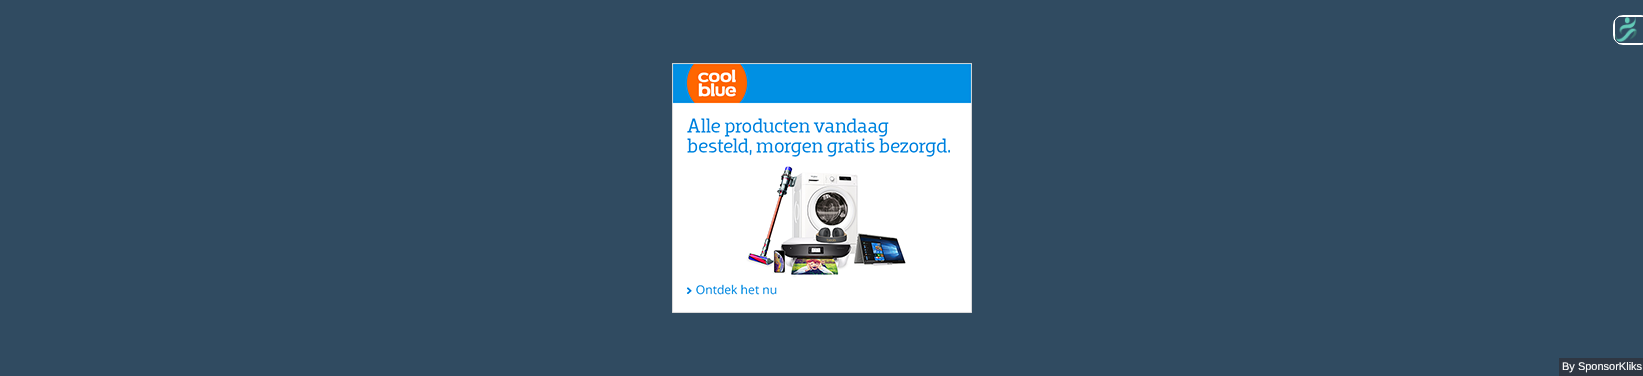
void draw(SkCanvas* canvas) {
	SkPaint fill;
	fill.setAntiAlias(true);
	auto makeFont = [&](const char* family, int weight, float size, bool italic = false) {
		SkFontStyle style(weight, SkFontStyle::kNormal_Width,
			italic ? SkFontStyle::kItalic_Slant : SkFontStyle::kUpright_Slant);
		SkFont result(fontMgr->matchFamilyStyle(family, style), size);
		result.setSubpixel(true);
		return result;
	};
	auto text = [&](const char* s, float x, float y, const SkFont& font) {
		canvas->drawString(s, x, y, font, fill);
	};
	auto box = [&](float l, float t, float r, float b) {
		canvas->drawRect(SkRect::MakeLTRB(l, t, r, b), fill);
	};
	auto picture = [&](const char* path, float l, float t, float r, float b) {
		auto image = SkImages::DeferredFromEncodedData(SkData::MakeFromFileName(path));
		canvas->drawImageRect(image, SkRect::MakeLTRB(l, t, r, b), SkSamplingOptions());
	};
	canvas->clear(0xFF304B61);
	fill.setStyle(SkPaint::kStroke_Style);
	fill.setStrokeWidth(1);
	fill.setColor(0xFFFFFFFF);
	canvas->drawRoundRect(SkRect::MakeLTRB(1613.5f, 15.5f, 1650.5f, 44.5f), 9.5f, 9.5f, fill);
	fill.setStyle(SkPaint::kFill_Style);
	box(1618, 16, 1643, 17);
	box(1618, 43, 1643, 44);
	box(1614, 20, 1615, 40);
	picture("image0.png", 1615, 17, 1637, 42);
	picture("image1.png", 672, 63, 972, 313);
	fill.setColor(0xFF2F3743);
	box(1559, 358, 1643, 376);
	auto font1 = makeFont("Liberation Sans", 400, 11);
	fill.setColor(0xFFFFFFFF);
	text("By SponsorKliks", 1562, 370, font1);
}
